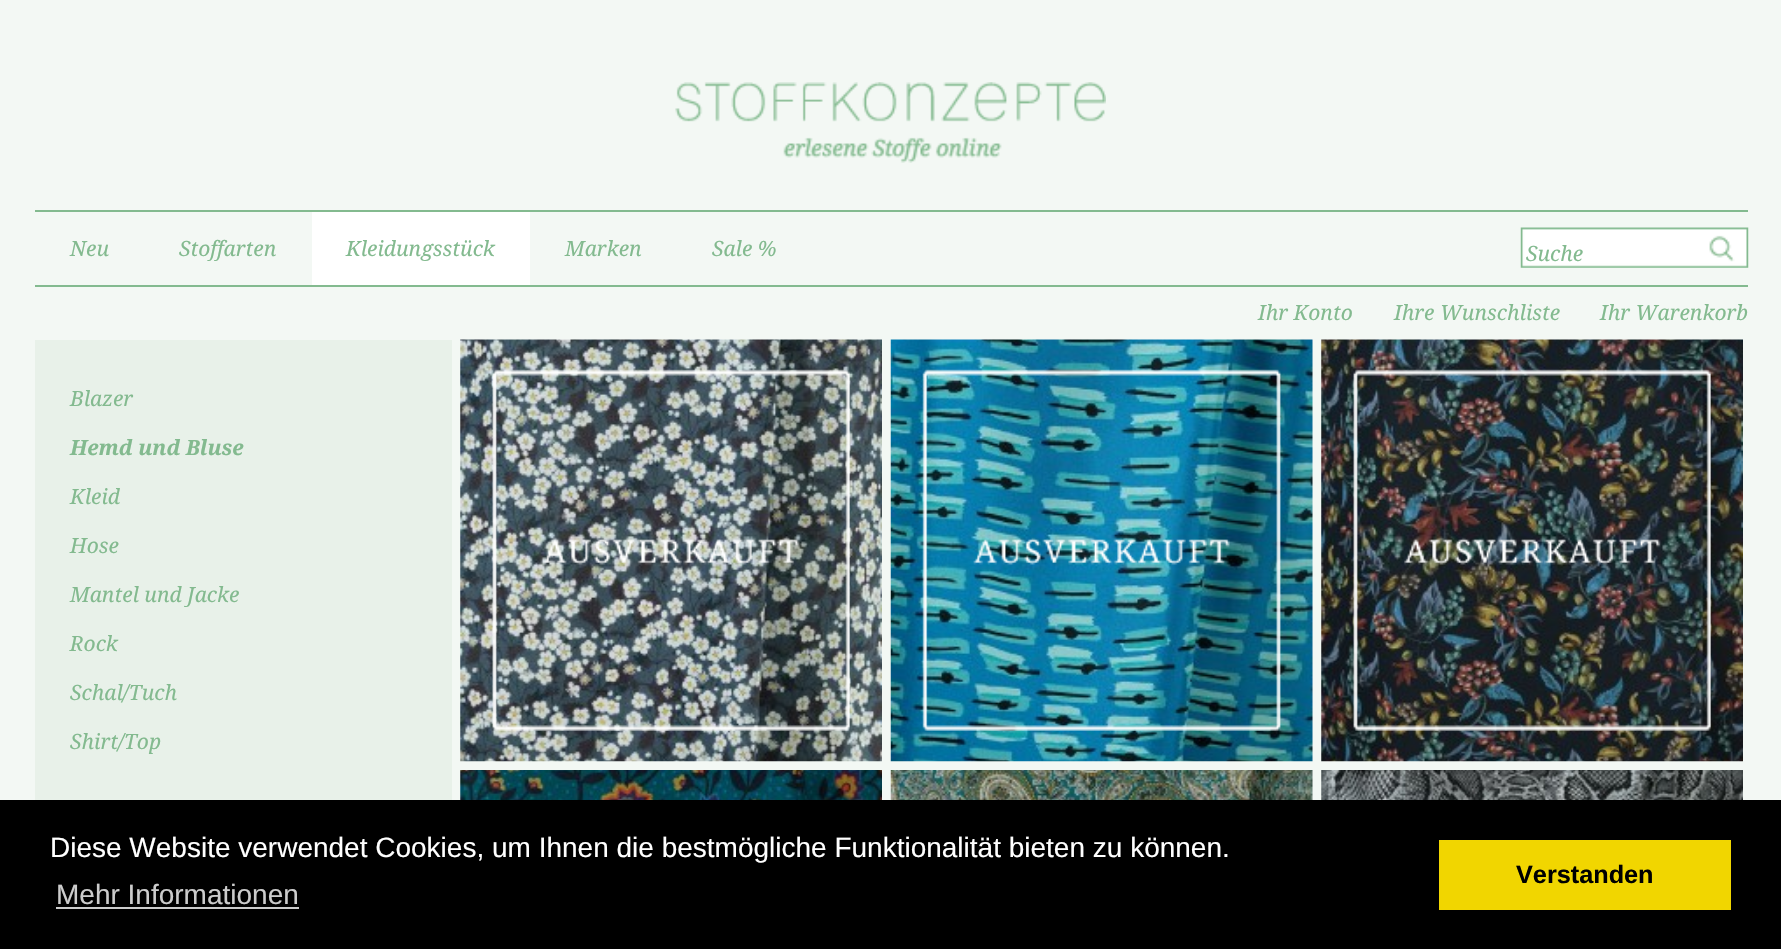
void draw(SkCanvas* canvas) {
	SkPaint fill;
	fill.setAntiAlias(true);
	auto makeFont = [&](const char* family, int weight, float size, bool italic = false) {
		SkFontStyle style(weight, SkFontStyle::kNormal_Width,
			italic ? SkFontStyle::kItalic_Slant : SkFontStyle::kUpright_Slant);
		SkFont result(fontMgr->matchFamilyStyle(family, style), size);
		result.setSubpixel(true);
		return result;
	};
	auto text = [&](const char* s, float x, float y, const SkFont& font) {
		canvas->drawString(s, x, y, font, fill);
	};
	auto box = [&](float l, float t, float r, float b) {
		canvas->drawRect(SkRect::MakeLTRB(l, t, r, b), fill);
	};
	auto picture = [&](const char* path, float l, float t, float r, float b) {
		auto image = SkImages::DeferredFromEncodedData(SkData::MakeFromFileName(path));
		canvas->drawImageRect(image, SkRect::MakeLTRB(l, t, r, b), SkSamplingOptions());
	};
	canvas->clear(0xFFF3F8F4);
	picture("image0.png", 675, 82, 1106, 163);
	fill.setColor(0xFF83BA8F);
	box(35, 210, 1748, 212);
	box(35, 285, 1748, 287);
	fill.setColor(0xFFFFFFFF);
	box(312, 212, 530, 285);
	picture("image1.png", 1520, 227, 1749, 268);
	fill.setColor(0xFFE8F1E9);
	box(35, 340, 452, 800);
	picture("image2.png", 460, 339, 882, 762);
	picture("image3.png", 492, 369, 850, 731);
	fill.setColor(0xFFF0F0F0);
	box(1312, 340, 1313, 761);
	picture("image4.png", 890, 339, 1313, 762);
	picture("image5.png", 922, 369, 1281, 731);
	picture("image6.png", 1321, 339, 1743, 762);
	picture("image7.png", 1353, 369, 1711, 731);
	picture("image8.png", 460, 770, 882, 800);
	box(1312, 770, 1313, 800);
	picture("image9.png", 890, 770, 1313, 800);
	picture("image10.png", 1321, 770, 1743, 800);
	fill.setColor(0xFF000000);
	box(0, 800, 1781, 949);
	fill.setColor(0xFFCCCCCC);
	box(56, 907, 299, 909);
	fill.setColor(0xFFF1D600);
	box(1439, 840, 1731, 910);
	auto font1 = makeFont("Droid Serif", 400, 21, true);
	fill.setColor(0xFF83BA8F);
	text("Neu", 70, 256, font1);
	text("Stoffarten", 179, 256, font1);
	text("Kleidungsstück", 346, 256, font1);
	text("Marken", 565, 256, font1);
	text("Sale %", 712, 256, font1);
	text("Suche", 1526, 261, font1);
	text("Ihr Konto", 1258, 320, font1);
	text("Ihre Wunschliste", 1394, 320, font1);
	text("Ihr Warenkorb", 1600, 320, font1);
	text("Blazer", 70, 406, font1);
	auto font2 = makeFont("Droid Serif", 700, 21, true);
	text("Hemd und Bluse", 70, 455, font2);
	text("Kleid", 70, 504, font1);
	text("Hose", 70, 553, font1);
	text("Mantel und Jacke", 70, 602, font1);
	text("Rock", 70, 651, font1);
	text("Schal/Tuch", 70, 700, font1);
	text("Shirt/Top", 70, 749, font1);
	auto font3 = makeFont("Liberation Sans", 400, 28);
	fill.setColor(0xFFFFFFFF);
	text("Diese Website verwendet Cookies, um Ihnen die bestmögliche Funktionalität bieten zu können.", 50, 857, font3);
	fill.setColor(0xFFCCCCCC);
	text("Mehr Informationen", 56, 904, font3);
	auto font4 = makeFont("Liberation Sans", 700, 25.25f);
	fill.setColor(0xFF000000);
	text("Verstanden", 1516, 883, font4);
}
